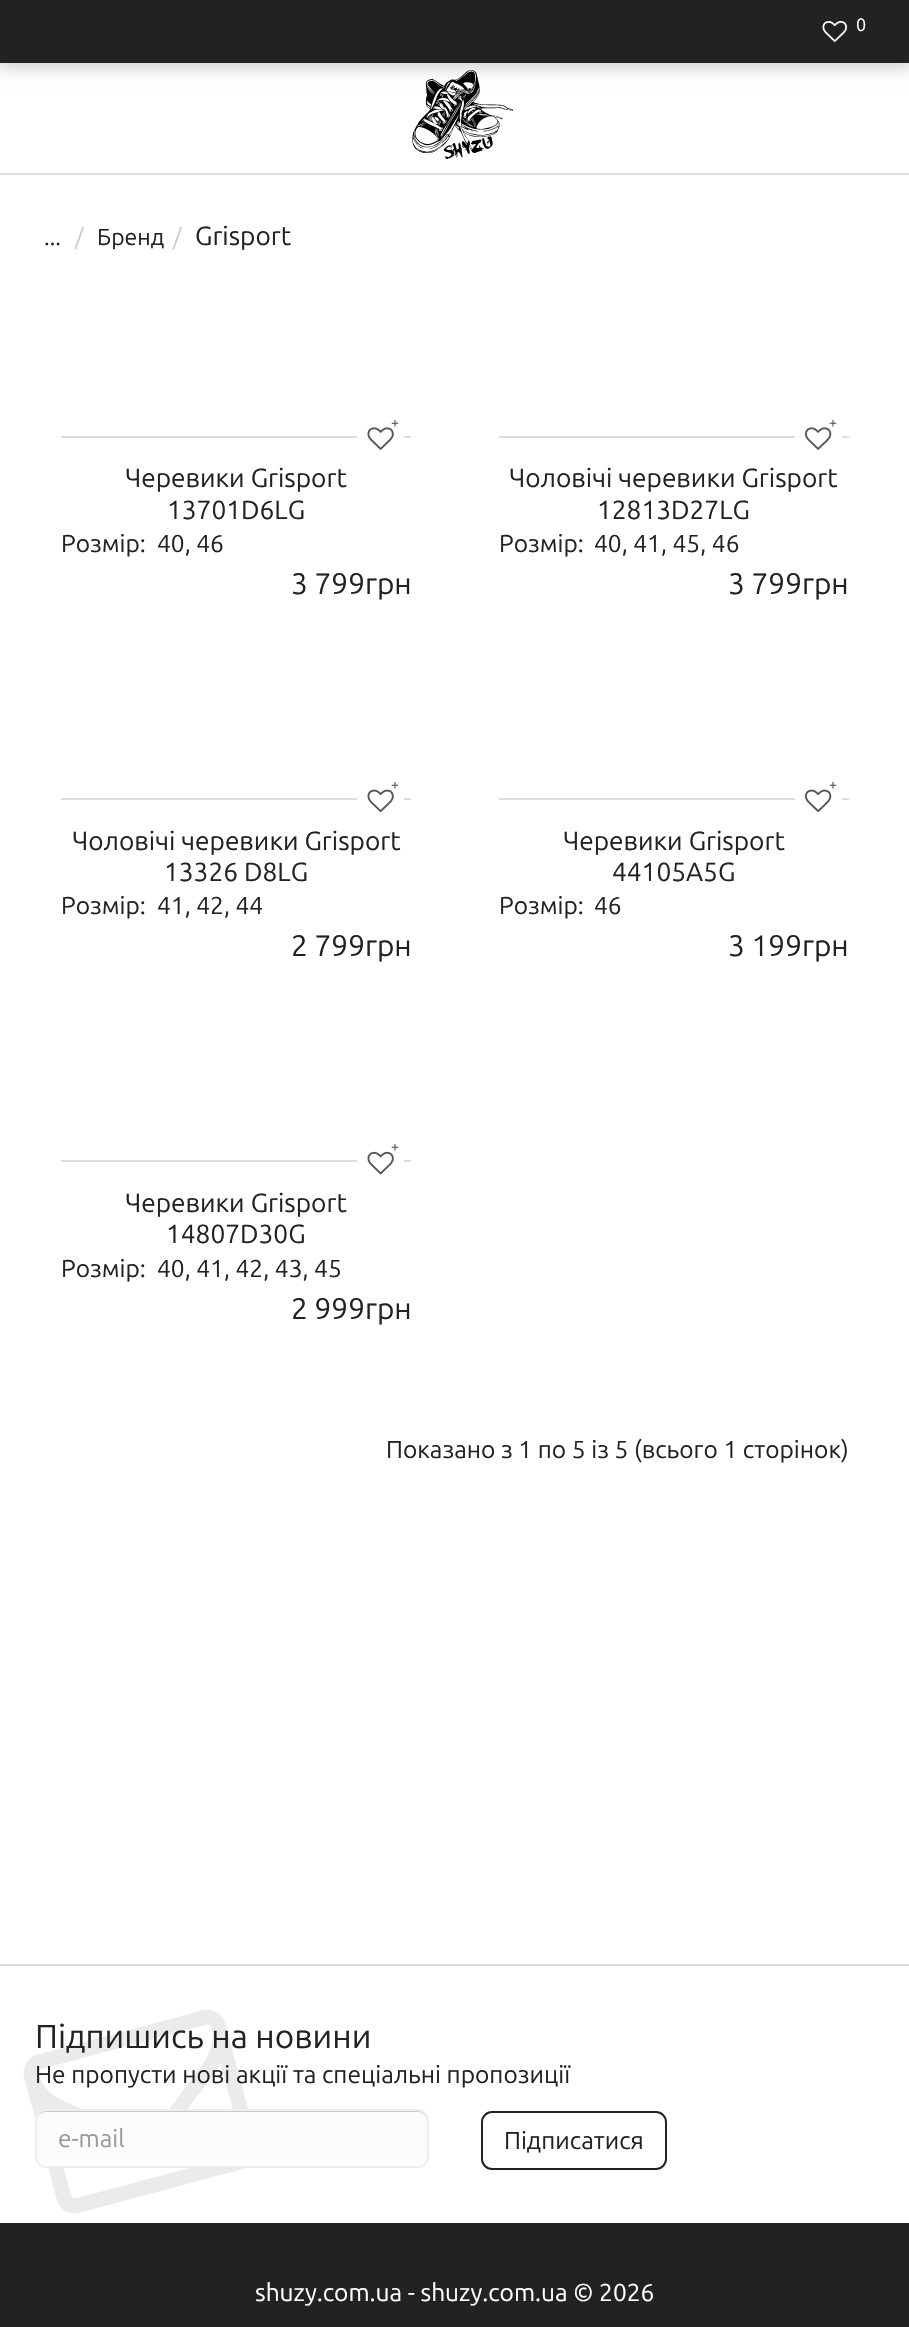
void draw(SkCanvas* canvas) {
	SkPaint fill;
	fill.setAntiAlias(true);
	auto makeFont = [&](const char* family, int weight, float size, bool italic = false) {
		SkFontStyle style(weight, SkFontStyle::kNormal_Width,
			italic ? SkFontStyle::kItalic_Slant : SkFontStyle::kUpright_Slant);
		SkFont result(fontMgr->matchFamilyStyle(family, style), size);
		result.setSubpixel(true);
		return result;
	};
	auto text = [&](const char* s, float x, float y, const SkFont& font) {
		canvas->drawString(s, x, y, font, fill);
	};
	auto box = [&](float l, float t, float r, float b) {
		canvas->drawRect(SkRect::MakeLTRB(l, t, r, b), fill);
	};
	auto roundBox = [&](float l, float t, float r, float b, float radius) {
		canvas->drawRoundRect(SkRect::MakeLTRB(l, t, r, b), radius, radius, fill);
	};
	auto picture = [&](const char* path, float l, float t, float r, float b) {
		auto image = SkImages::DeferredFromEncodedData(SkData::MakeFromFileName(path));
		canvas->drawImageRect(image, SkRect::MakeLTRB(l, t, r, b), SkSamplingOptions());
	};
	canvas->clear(0xFFFFFFFF);
	picture("image1.png", 412, 70, 513, 159);
	fill.setColor(0x33000000);
	fill.setMaskFilter(SkMaskFilter::MakeBlur(kNormal_SkBlurStyle, 9));
	canvas->drawRect(SkRect::MakeLTRB(-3, -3, 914, 67), fill);
	fill.setMaskFilter(nullptr);
	fill.setColor(0xFF222222);
	box(0, 0, 909, 63);
	picture("image0.png", 822, 21, 847, 42);
	fill.setColor(0xFFDDDDDD);
	box(0, 173, 909, 175);
	box(61, 436, 411, 438);
	fill.setColor(0xFFFFFFFF);
	box(357, 436, 404, 438);
	picture("image2.png", 367, 427, 394, 450);
	fill.setColor(0xFFDDDDDD);
	box(499, 436, 849, 438);
	fill.setColor(0xFFFFFFFF);
	box(795, 436, 842, 438);
	picture("image3.png", 805, 427, 832, 450);
	fill.setColor(0xFFDDDDDD);
	box(61, 798, 411, 800);
	fill.setColor(0xFFFFFFFF);
	box(357, 798, 404, 800);
	picture("image4.png", 367, 789, 394, 813);
	fill.setColor(0xFFDDDDDD);
	box(499, 798, 849, 800);
	fill.setColor(0xFFFFFFFF);
	box(795, 798, 842, 800);
	picture("image5.png", 805, 789, 832, 813);
	fill.setColor(0xFFDDDDDD);
	box(61, 1160, 411, 1162);
	fill.setColor(0xFFFFFFFF);
	box(357, 1160, 404, 1162);
	picture("image6.png", 367, 1151, 394, 1175);
	fill.setColor(0xFFDDDDDD);
	box(0, 1964, 909, 1966);
	picture("image7.png", 23, 2010, 248, 2214);
	fill.setColor(0xFFFCFCFC);
	roundBox(35, 2109, 429, 2168, 11);
	fill.setColor(0xFFCACACA);
	canvas->drawPath(SkPathBuilder().moveTo(46, 2112).lineTo(418, 2112).cubicTo(423, 2112, 427, 2116, 427, 2121).lineTo(427, 2120).cubicTo(427, 2115, 423, 2111, 418, 2111).lineTo(46, 2111).cubicTo(41, 2111, 37, 2115, 37, 2120).lineTo(37, 2121).cubicTo(37, 2116, 41, 2112, 46, 2112).close().detach(), fill);
	fill.setStyle(SkPaint::kStroke_Style);
	fill.setStrokeWidth(2);
	fill.setColor(0xFFEEEEEE);
	canvas->drawRoundRect(SkRect::MakeLTRB(36, 2110, 428, 2167), 10, 10, fill);
	fill.setColor(0xFF222222);
	canvas->drawRoundRect(SkRect::MakeLTRB(482, 2112, 666, 2169), 10, 10, fill);
	fill.setStyle(SkPaint::kFill_Style);
	box(0, 2223, 909, 2327);
	auto font1 = makeFont("Ubuntu", 400, 18);
	fill.setColor(0xFFFFFFFF);
	text("0", 856, 31, font1);
	auto font2 = makeFont("Ubuntu", 400, 23);
	fill.setColor(0xFF222222);
	text("...", 44, 245, font2);
	fill.setColor(0xFFCCCCCC);
	text("/", 75, 245, font2);
	fill.setColor(0xFF222222);
	text("Бренд", 97, 245, font2);
	fill.setColor(0xFFCCCCCC);
	text("/", 173, 245, font2);
	auto font3 = makeFont("Ubuntu", 400, 26.25f);
	fill.setColor(0xFF222222);
	text("Grisport", 195, 245, font3);
	text("Черевики Grisport", 125, 487, font3);
	text("13701D6LG", 167, 519, font3);
	auto font4 = makeFont("Liberation Serif", 700, 14);
	fill.setColor(0xFF555555);
	text("+", 391, 428, font4);
	auto font5 = makeFont("Ubuntu", 400, 29.75f);
	fill.setColor(0xFF222222);
	text("3 799грн", 291, 594, font5);
	auto font6 = makeFont("Ubuntu", 400, 24.5f);
	text("Розмір:", 61, 552, font6);
	text("40, 46", 157, 552, font6);
	fill.setColor(0xFF555555);
	text("+", 829, 428, font4);
	fill.setColor(0xFF222222);
	text("3 799грн", 728, 594, font5);
	text("Чоловічі черевики Grisport", 509, 487, font3);
	text("12813D27LG", 597, 519, font3);
	text("Розмір:", 499, 552, font6);
	text("40, 41, 45, 46", 594, 552, font6);
	fill.setColor(0xFF555555);
	text("+", 391, 790, font4);
	fill.setColor(0xFF222222);
	text("2 799грн", 291, 956, font5);
	text("Чоловічі черевики Grisport", 72, 850, font3);
	text("13326 D8LG", 164, 881, font3);
	text("Розмір:", 61, 914, font6);
	text("41, 42, 44", 157, 914, font6);
	text("Черевики Grisport", 563, 850, font3);
	text("44105A5G", 612, 881, font3);
	fill.setColor(0xFF555555);
	text("+", 829, 790, font4);
	fill.setColor(0xFF222222);
	text("3 199грн", 728, 956, font5);
	text("Розмір:", 499, 914, font6);
	text("46", 594, 914, font6);
	text("Черевики Grisport", 125, 1212, font3);
	text("14807D30G", 166, 1243, font3);
	fill.setColor(0xFF555555);
	text("+", 391, 1152, font4);
	fill.setColor(0xFF222222);
	text("2 999грн", 291, 1319, font5);
	text("Розмір:", 61, 1277, font6);
	text("40, 41, 42, 43, 45", 157, 1277, font6);
	text("Показано з 1 по 5 із 5 (всього 1 сторінок)", 386, 1458, font6);
	auto font7 = makeFont("Ubuntu", 400, 33.25f);
	text("Підпишись на новини", 35, 2048, font7);
	text("Не пропусти нові акції та спеціальні пропозиції", 35, 2083, font6);
	fill.setColor(0xFF999999);
	text("e-mail", 58, 2147, font6);
	fill.setColor(0xFF222222);
	text("Підписатися", 504, 2149, font6);
	fill.setColor(0xFFFFFFFF);
	text("shuzy.com.ua - shuzy.com.ua © 2026", 255, 2301, font6);
}
